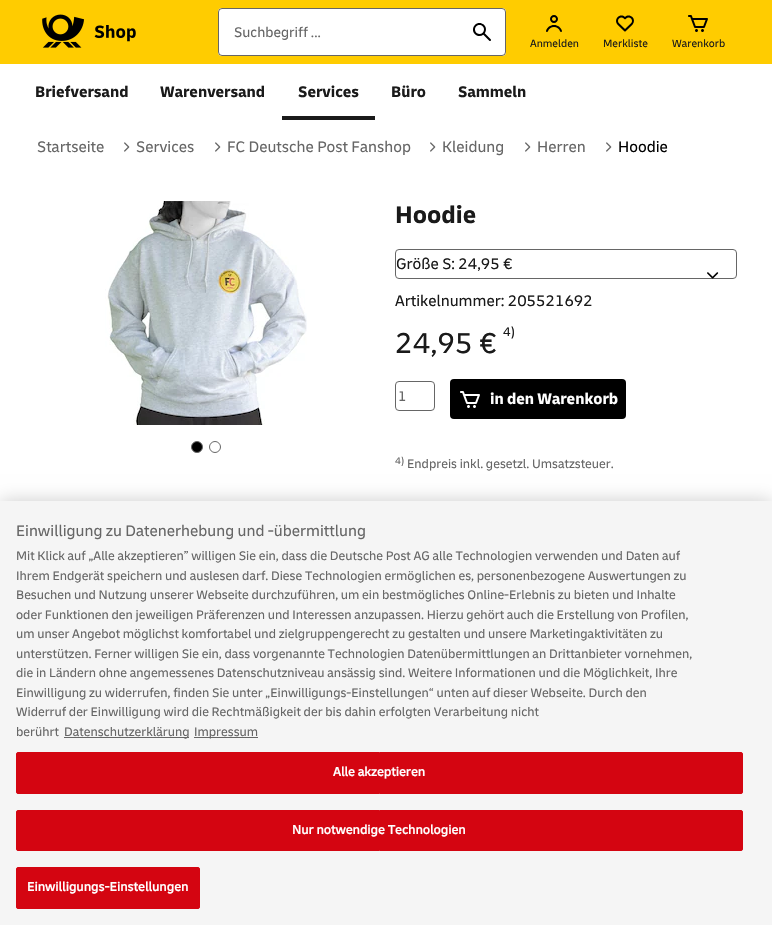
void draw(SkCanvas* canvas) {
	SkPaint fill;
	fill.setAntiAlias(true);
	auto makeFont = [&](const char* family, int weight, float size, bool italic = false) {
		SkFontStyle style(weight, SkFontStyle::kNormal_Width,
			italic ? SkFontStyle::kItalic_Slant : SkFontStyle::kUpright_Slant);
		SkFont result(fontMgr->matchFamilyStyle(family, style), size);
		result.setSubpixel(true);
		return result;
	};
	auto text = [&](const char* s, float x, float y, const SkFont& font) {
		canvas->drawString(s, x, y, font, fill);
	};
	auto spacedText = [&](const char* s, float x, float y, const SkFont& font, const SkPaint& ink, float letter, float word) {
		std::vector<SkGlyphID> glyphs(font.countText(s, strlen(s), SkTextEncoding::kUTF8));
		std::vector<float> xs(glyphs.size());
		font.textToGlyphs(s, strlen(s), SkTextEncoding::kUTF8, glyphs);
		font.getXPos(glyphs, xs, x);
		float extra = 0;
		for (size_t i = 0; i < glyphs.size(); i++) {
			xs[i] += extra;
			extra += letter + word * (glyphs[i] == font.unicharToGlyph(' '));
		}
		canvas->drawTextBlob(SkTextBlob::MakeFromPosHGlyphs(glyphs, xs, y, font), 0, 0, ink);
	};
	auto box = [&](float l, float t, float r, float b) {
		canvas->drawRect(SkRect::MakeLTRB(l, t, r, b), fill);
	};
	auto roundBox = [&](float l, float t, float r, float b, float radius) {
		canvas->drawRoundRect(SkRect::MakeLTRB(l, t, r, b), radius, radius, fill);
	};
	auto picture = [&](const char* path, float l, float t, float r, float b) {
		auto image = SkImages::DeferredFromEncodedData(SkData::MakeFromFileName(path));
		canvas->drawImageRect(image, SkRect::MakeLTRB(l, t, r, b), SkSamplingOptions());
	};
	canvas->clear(0xFFFFFFFF);
	fill.setColor(0xFFFFCC00);
	box(0, 0, 772, 64);
	picture("image0.png", 42, 14, 136, 48);
	fill.setColor(0xFFFFFFFF);
	roundBox(218, 8, 506, 56, 4);
	fill.setStyle(SkPaint::kStroke_Style);
	fill.setStrokeWidth(1);
	fill.setColor(0x99000000);
	canvas->drawRoundRect(SkRect::MakeLTRB(218.5f, 8.5f, 505.5f, 55.5f), 3.5f, 3.5f, fill);
	picture("image1.png", 473, 23, 491, 41);
	picture("image2.png", 546, 15, 562, 32);
	picture("image3.png", 616, 15, 634, 32);
	picture("image4.png", 688, 15, 708, 32);
	fill.setStyle(SkPaint::kFill_Style);
	fill.setColor(0xFF1A1A1A);
	box(282, 116, 375, 120);
	picture("image5.png", 124, 142, 130, 152);
	picture("image5.png", 215, 142, 221, 152);
	picture("image5.png", 430, 142, 436, 152);
	picture("image5.png", 525, 142, 531, 152);
	picture("image5.png", 606, 142, 612, 152);
	picture("image6.png", 105, 201, 307, 425);
	fill.setColor(0xFF000000);
	canvas->drawCircle(197, 447, 5.5f, fill);
	fill.setStyle(SkPaint::kStroke_Style);
	fill.setColor(0xFF666666);
	canvas->drawCircle(197, 447, 5.5f, fill);
	canvas->drawCircle(215, 447, 5.5f, fill);
	canvas->drawRoundRect(SkRect::MakeLTRB(395.5f, 249.5f, 736.5f, 278.5f), 3.5f, 3.5f, fill);
	picture("image7.png", 707, 272, 719, 279);
	canvas->drawRoundRect(SkRect::MakeLTRB(395.5f, 381.5f, 434.5f, 410.5f), 3.5f, 3.5f, fill);
	fill.setStyle(SkPaint::kFill_Style);
	fill.setColor(0xFF000000);
	roundBox(450, 379, 626, 419, 4);
	picture("image8.png", 460, 391, 480, 408);
	fill.setColor(0x33000000);
	fill.setMaskFilter(SkMaskFilter::MakeBlur(kNormal_SkBlurStyle, 9));
	canvas->drawRect(SkRect::MakeLTRB(0, 501, 772, 925), fill);
	fill.setMaskFilter(nullptr);
	fill.setColor(0xFFF5F5F5);
	box(0, 501, 772, 925);
	fill.setColor(0xFF666666);
	box(64, 737, 189, 738);
	box(194, 737, 258, 738);
	fill.setColor(0xFFD40511);
	canvas->drawRoundRect(SkRect::MakeLTRB(16.5f, 752.5f, 742.5f, 793.5f), 1.5f, 1.5f, fill);
	fill.setStyle(SkPaint::kStroke_Style);
	canvas->drawRoundRect(SkRect::MakeLTRB(16.5f, 752.5f, 742.5f, 793.5f), 1.5f, 1.5f, fill);
	fill.setStyle(SkPaint::kFill_Style);
	canvas->drawRoundRect(SkRect::MakeLTRB(16.5f, 810.5f, 742.5f, 850.5f), 1.5f, 1.5f, fill);
	fill.setStyle(SkPaint::kStroke_Style);
	canvas->drawRoundRect(SkRect::MakeLTRB(16.5f, 810.5f, 742.5f, 850.5f), 1.5f, 1.5f, fill);
	fill.setStyle(SkPaint::kFill_Style);
	canvas->drawRoundRect(SkRect::MakeLTRB(16.5f, 867.5f, 199.5f, 908.5f), 1.5f, 1.5f, fill);
	fill.setStyle(SkPaint::kStroke_Style);
	canvas->drawRoundRect(SkRect::MakeLTRB(16.5f, 867.5f, 199.5f, 908.5f), 1.5f, 1.5f, fill);
	auto font1 = makeFont("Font", 400, 14.5f);
	fill.setStyle(SkPaint::kFill_Style);
	fill.setColor(0xFF666666);
	text("Suchbegriff ...", 234, 37, font1);
	auto font2 = makeFont("Font", 400, 11);
	fill.setColor(0xFF1A1A1A);
	text("Anmelden", 530, 47, font2);
	text("Merkliste", 603, 47, font2);
	text("Warenkorb", 672, 47, font2);
	auto font3 = makeFont("Font", 700, 16);
	text("Briefversand", 35, 97, font3);
	text("Warenversand", 160, 97, font3);
	text("Services", 298, 97, font3);
	text("Büro", 391, 97, font3);
	text("Sammeln", 458, 97, font3);
	auto font4 = makeFont("Font", 400, 16);
	fill.setColor(0xFF666666);
	text("Startseite", 37, 152, font4);
	text("Services", 136, 152, font4);
	text("FC Deutsche Post Fanshop", 227, 152, font4);
	text("Kleidung", 442, 152, font4);
	text("Herren", 537, 152, font4);
	fill.setColor(0xFF000000);
	text("Hoodie", 618, 152, font4);
	auto font5 = makeFont("Font", 700, 25);
	fill.setColor(0xFF1A1A1A);
	text("Hoodie", 395, 223, font5);
	text("Größe S: 24,95 €", 396, 269, font4);
	text("Artikelnummer: 205521692", 395, 306, font4);
	auto font6 = makeFont("Font", 400, 30);
	text("24,95 €", 395, 353, font6);
	auto font7 = makeFont("Font", 400, 13);
	text("4)", 503, 336, font7);
	fill.setColor(0xFF666666);
	text("1", 398, 401, font1);
	fill.setColor(0xFFFFFFFF);
	text("in den Warenkorb", 490, 404, font3);
	auto font8 = makeFont("Font", 400, 10);
	fill.setColor(0xFF666666);
	text("4)", 395, 464, font8);
	text("Endpreis inkl. gesetzl. Umsatzsteuer.", 407, 468, font7);
	text("Einwilligung zu Datenerhebung und -übermittlung", 16, 536, font4);
	text("Mit Klick auf „Alle akzeptieren” willigen Sie ein, dass die Deutsche Post AG alle Technologien verwenden und Daten auf", 16, 560, font7);
	text("Ihrem Endgerät speichern und auslesen darf. Diese Technologien ermöglichen es, personenbezogene Auswertungen zu", 16, 580, font7);
	text("Besuchen und Nutzung unserer Webseite durchzuführen, um ein bestmögliches Online-Erlebnis zu bieten und Inhalte", 16, 599, font7);
	text("oder Funktionen den jeweiligen Präferenzen und Interessen anzupassen. Hierzu gehört auch die Erstellung von Profilen,", 16, 619, font7);
	text("um unser Angebot möglichst komfortabel und zielgruppengerecht zu gestalten und unsere Marketingaktivitäten zu", 16, 638, font7);
	text("unterstützen. Ferner willigen Sie ein, dass vorgenannte Technologien Datenübermittlungen an Drittanbieter vornehmen,", 16, 658, font7);
	text("die in Ländern ohne angemessenes Datenschutzniveau ansässig sind. Weitere Informationen und die Möglichkeit, Ihre", 16, 677, font7);
	text("Einwilligung zu widerrufen, finden Sie unter „Einwilligungs-Einstellungen“ unten auf dieser Webseite. Durch den", 16, 697, font7);
	text("Widerruf der Einwilligung wird die Rechtmäßigkeit der bis dahin erfolgten Verarbeitung nicht", 16, 716, font7);
	text("berührt", 16, 736, font7);
	text("Datenschutzerklärung", 64, 736, font7);
	text("Impressum", 194, 736, font7);
	auto font9 = makeFont("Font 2", 700, 13);
	fill.setColor(0xFFFFFFFF);
	spacedText("Alle akzeptieren", 333, 776, font9, fill, 0.1f, 0);
	spacedText("Nur notwendige Technologien", 292, 834, font9, fill, 0.1f, 0);
	spacedText("Einwilligungs-Einstellungen", 27, 891, font9, fill, 0.1f, 0);
}
